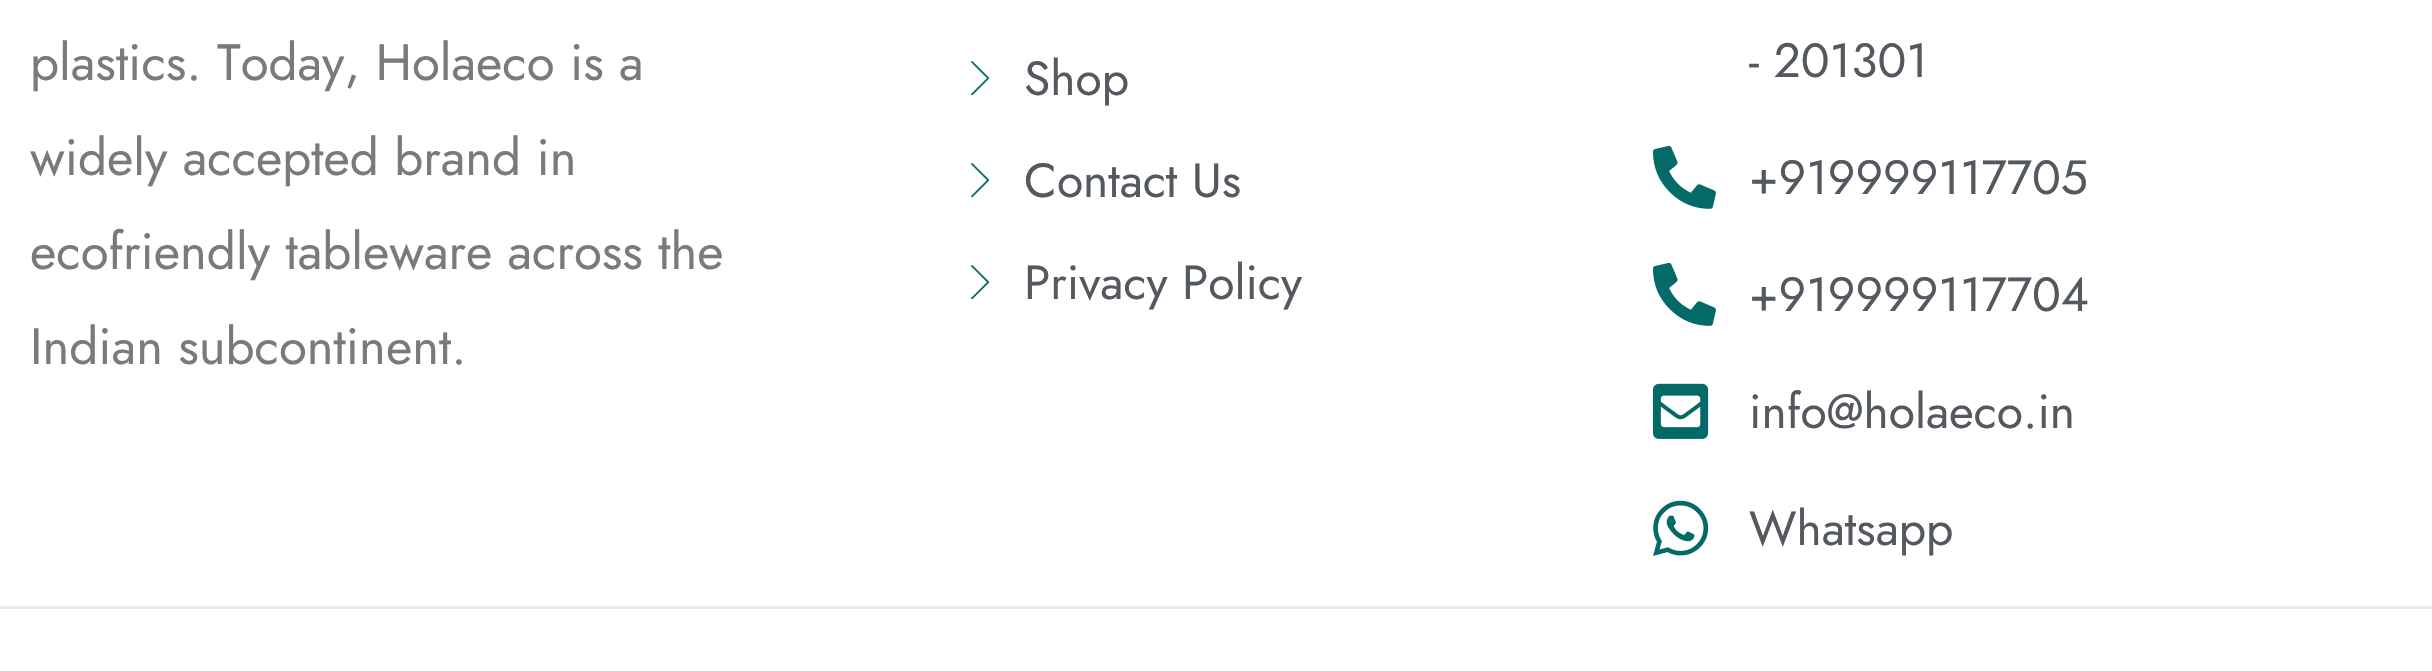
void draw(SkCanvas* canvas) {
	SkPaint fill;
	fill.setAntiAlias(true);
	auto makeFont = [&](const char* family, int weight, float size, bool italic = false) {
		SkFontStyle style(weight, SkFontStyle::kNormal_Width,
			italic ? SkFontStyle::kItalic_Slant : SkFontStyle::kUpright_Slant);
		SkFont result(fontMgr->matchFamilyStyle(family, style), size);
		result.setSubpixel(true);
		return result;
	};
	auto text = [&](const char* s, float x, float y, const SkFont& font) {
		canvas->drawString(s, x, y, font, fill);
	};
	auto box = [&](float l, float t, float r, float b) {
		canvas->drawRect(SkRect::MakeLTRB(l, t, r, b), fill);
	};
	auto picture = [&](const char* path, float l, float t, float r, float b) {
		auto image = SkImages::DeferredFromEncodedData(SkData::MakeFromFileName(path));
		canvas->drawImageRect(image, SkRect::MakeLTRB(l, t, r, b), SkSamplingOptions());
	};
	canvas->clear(0xFFFFFFFF);
	picture("image0.png", 971, 61, 989, 96);
	picture("image0.png", 971, 163, 989, 198);
	picture("image0.png", 971, 265, 989, 300);
	picture("image1.png", 1653, 145, 1716, 209);
	picture("image1.png", 1653, 262, 1716, 326);
	picture("image2.png", 1653, 383, 1709, 439);
	picture("image3.png", 1653, 500, 1709, 556);
	fill.setColor(0xFFE9E9E9);
	box(0, 606, 2432, 609);
	auto font1 = makeFont("Jost", 400, 51);
	fill.setColor(0xFF7A7A7A);
	text("plastics. Today, Holaeco is a", 30, 80, font1);
	text("widely accepted brand in", 30, 175, font1);
	text("ecofriendly tableware across the", 30, 269, font1);
	text("Indian subcontinent.", 30, 364, font1);
	auto font2 = makeFont("Jost", 400, 48);
	fill.setColor(0xFF54595F);
	text("Shop", 1024, 95, font2);
	text("Contact Us", 1024, 197, font2);
	text("Privacy Policy", 1024, 299, font2);
	text("- 201301", 1749, 77, font2);
	text("+919999117705", 1749, 194, font2);
	text("+919999117704", 1749, 311, font2);
	text("info@holaeco.in", 1749, 428, font2);
	text("Whatsapp", 1749, 545, font2);
}
